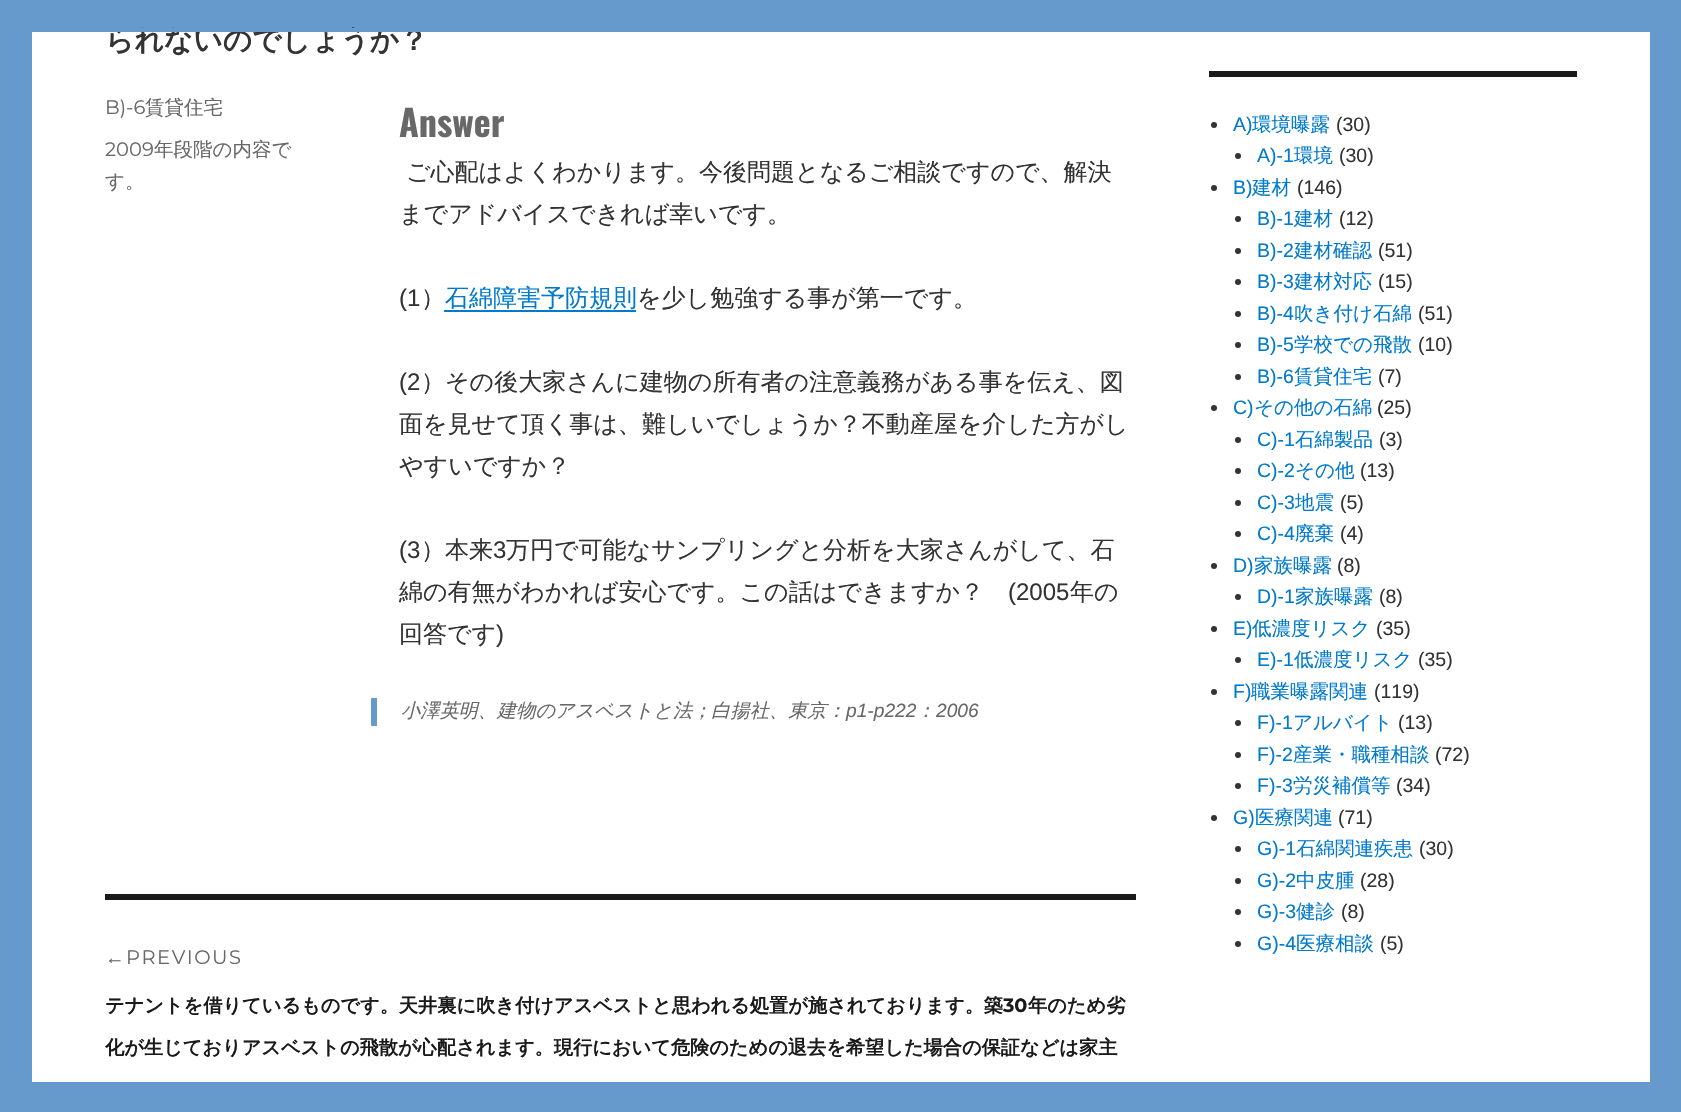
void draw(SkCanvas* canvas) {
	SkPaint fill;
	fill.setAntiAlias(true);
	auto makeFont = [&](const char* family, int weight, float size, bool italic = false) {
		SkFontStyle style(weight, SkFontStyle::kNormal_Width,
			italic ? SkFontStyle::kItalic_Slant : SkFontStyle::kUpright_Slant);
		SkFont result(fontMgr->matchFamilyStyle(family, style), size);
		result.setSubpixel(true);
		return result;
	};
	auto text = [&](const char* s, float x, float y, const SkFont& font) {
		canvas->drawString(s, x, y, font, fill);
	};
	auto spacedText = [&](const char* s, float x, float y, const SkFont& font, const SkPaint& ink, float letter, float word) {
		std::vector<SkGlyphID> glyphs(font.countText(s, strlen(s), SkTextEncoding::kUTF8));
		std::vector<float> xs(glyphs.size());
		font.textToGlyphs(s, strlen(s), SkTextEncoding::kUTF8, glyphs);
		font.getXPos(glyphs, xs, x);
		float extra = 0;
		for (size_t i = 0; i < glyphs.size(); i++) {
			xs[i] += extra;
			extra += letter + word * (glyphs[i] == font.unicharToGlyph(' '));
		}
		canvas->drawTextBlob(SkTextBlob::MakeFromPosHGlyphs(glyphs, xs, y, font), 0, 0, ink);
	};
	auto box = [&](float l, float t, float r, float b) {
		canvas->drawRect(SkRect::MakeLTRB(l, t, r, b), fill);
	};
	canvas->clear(0xFF6699CC);
	fill.setColor(0xFFFFFFFF);
	box(32, 32, 1650, 1082);
	fill.setColor(0xFF007ACC);
	box(444, 310, 636, 312);
	fill.setColor(0xFF6699CC);
	box(371, 698, 377, 726);
	fill.setColor(0xFF1A1A1A);
	box(105, 894, 1136, 900);
	box(1209, 71, 1577, 77);
	fill.setColor(0xFF333333);
	canvas->drawCircle(1214, 125, 3, fill);
	canvas->drawCircle(1238, 156, 3, fill);
	canvas->drawCircle(1214, 188, 3, fill);
	canvas->drawCircle(1238, 219, 3, fill);
	canvas->drawCircle(1238, 251, 3, fill);
	canvas->drawCircle(1238, 282, 3, fill);
	canvas->drawCircle(1238, 314, 3, fill);
	canvas->drawCircle(1238, 345, 3, fill);
	canvas->drawCircle(1238, 377, 3, fill);
	canvas->drawCircle(1214, 408, 3, fill);
	canvas->drawCircle(1238, 440, 3, fill);
	canvas->drawCircle(1238, 471, 3, fill);
	canvas->drawCircle(1238, 503, 3, fill);
	canvas->drawCircle(1238, 534, 3, fill);
	canvas->drawCircle(1214, 566, 3, fill);
	canvas->drawCircle(1238, 597, 3, fill);
	canvas->drawCircle(1214, 629, 3, fill);
	canvas->drawCircle(1238, 660, 3, fill);
	canvas->drawCircle(1214, 692, 3, fill);
	canvas->drawCircle(1238, 723, 3, fill);
	canvas->drawCircle(1238, 755, 3, fill);
	canvas->drawCircle(1238, 786, 3, fill);
	canvas->drawCircle(1214, 818, 3, fill);
	canvas->drawCircle(1238, 849, 3, fill);
	canvas->drawCircle(1238, 881, 3, fill);
	canvas->drawCircle(1238, 912, 3, fill);
	canvas->drawCircle(1238, 944, 3, fill);
	auto font1 = makeFont("WenQuanYi Zen Hei", 700, 28.75f);
	text("られないのでしょうか？", 105, 50, font1);
	auto font2 = makeFont("Montserrat", 100, 19.5f);
	fill.setColor(0xFF686868);
	text("B)-6", 105, 114, font2);
	auto font3 = makeFont("WenQuanYi Zen Hei", 500, 19.5f);
	text("賃貸住宅", 145, 114, font3);
	text("2009", 105, 156, font2);
	text("年段階の内容で", 154, 156, font3);
	text("す。", 105, 188, font3);
	auto font4 = makeFont("Oswald", 700, 36);
	text("Answer", 399, 137, font4);
	auto font5 = makeFont("WenQuanYi Zen Hei", 500, 24);
	fill.setColor(0xFF333333);
	text("ご心配はよくわかります。今後問題となるご相談ですので、解決", 406, 180, font5);
	text("までアドバイスできれば幸いです。", 399, 222, font5);
	auto font6 = makeFont("Liberation Sans", 400, 24);
	text("(1", 399, 306, font6);
	text("）", 421, 306, font5);
	fill.setColor(0xFF007ACC);
	text("石綿障害予防規則", 445, 306, font5);
	fill.setColor(0xFF333333);
	text("を少し勉強する事が第一です。", 637, 306, font5);
	text("(2", 399, 390, font6);
	text("）その後大家さんに建物の所有者の注意義務がある事を伝え、図", 421, 390, font5);
	text("面を見せて頂く事は、難しいでしょうか？不動産屋を介した方がし", 399, 432, font5);
	text("やすいですか？", 399, 474, font5);
	text("(3", 399, 558, font6);
	text("）本来", 421, 558, font5);
	text("3", 493, 558, font6);
	text("万円で可能なサンプリングと分析を大家さんがして、石", 506, 558, font5);
	text("綿の有無がわかれば安心です。この話はできますか？", 399, 600, font5);
	text("(2005", 1008, 600, font6);
	text("年の", 1070, 600, font5);
	text("回答です", 399, 642, font5);
	text(")", 496, 642, font6);
	auto font7 = makeFont("WenQuanYi Zen Hei", 500, 19.2f, true);
	fill.setColor(0xFF686868);
	text("小澤英明、建物のアスベストと法；白揚社、東京：", 401, 717, font7);
	auto font8 = makeFont("Liberation Sans", 400, 19.2f, true);
	text("p1-p222", 846, 717, font8);
	text("：", 916, 717, font7);
	text("2006", 936, 717, font8);
	auto font9 = makeFont("Liberation Sans", 400, 19.5f);
	spacedText("←", 105, 964, font9, fill, 1.5f, 0);
	spacedText("PREVIOUS", 126, 964, font2, fill, 1.5f, 0);
	auto font10 = makeFont("WenQuanYi Zen Hei", 700, 19.2f);
	fill.setColor(0xFF1A1A1A);
	text("テナントを借りているものです。天井裏に吹き付けアスベストと思われる処置が施されております。築", 105, 1012, font10);
	auto font11 = makeFont("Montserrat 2", 100, 19.2f);
	text("30", 1003, 1012, font11);
	text("年のため劣", 1028, 1012, font10);
	text("化が生じておりアスベストの飛散が心配されます。現行において危険のための退去を希望した場合の保証などは家主", 105, 1054, font10);
	fill.setColor(0xFF007ACC);
	text("A)", 1233, 131, font9);
	text("環境曝露", 1252, 131, font3);
	fill.setColor(0xFF333333);
	text("(30)", 1336, 131, font9);
	fill.setColor(0xFF007ACC);
	text("A)-1", 1257, 162, font9);
	text("環境", 1294, 162, font3);
	fill.setColor(0xFF333333);
	text("(30)", 1339, 162, font9);
	fill.setColor(0xFF007ACC);
	text("B)", 1233, 194, font9);
	text("建材", 1252, 194, font3);
	fill.setColor(0xFF333333);
	text("(146)", 1297, 194, font9);
	fill.setColor(0xFF007ACC);
	text("B)-1", 1257, 225, font9);
	text("建材", 1294, 225, font3);
	fill.setColor(0xFF333333);
	text("(12)", 1339, 225, font9);
	fill.setColor(0xFF007ACC);
	text("B)-2", 1257, 257, font9);
	text("建材確認", 1294, 257, font3);
	fill.setColor(0xFF333333);
	text("(51)", 1378, 257, font9);
	fill.setColor(0xFF007ACC);
	text("B)-3", 1257, 288, font9);
	text("建材対応", 1294, 288, font3);
	fill.setColor(0xFF333333);
	text("(15)", 1378, 288, font9);
	fill.setColor(0xFF007ACC);
	text("B)-4", 1257, 320, font9);
	text("吹き付け石綿", 1294, 320, font3);
	fill.setColor(0xFF333333);
	text("(51)", 1418, 320, font9);
	fill.setColor(0xFF007ACC);
	text("B)-5", 1257, 351, font9);
	text("学校での飛散", 1294, 351, font3);
	fill.setColor(0xFF333333);
	text("(10)", 1418, 351, font9);
	fill.setColor(0xFF007ACC);
	text("B)-6", 1257, 383, font9);
	text("賃貸住宅", 1294, 383, font3);
	fill.setColor(0xFF333333);
	text("(7)", 1378, 383, font9);
	fill.setColor(0xFF007ACC);
	text("C)", 1233, 414, font9);
	text("その他の石綿", 1254, 414, font3);
	fill.setColor(0xFF333333);
	text("(25)", 1377, 414, font9);
	fill.setColor(0xFF007ACC);
	text("C)-1", 1257, 446, font9);
	text("石綿製品", 1295, 446, font3);
	fill.setColor(0xFF333333);
	text("(3)", 1379, 446, font9);
	fill.setColor(0xFF007ACC);
	text("C)-2", 1257, 477, font9);
	text("その他", 1295, 477, font3);
	fill.setColor(0xFF333333);
	text("(13)", 1360, 477, font9);
	fill.setColor(0xFF007ACC);
	text("C)-3", 1257, 509, font9);
	text("地震", 1295, 509, font3);
	fill.setColor(0xFF333333);
	text("(5)", 1340, 509, font9);
	fill.setColor(0xFF007ACC);
	text("C)-4", 1257, 540, font9);
	text("廃棄", 1295, 540, font3);
	fill.setColor(0xFF333333);
	text("(4)", 1340, 540, font9);
	fill.setColor(0xFF007ACC);
	text("D)", 1233, 572, font9);
	text("家族曝露", 1254, 572, font3);
	fill.setColor(0xFF333333);
	text("(8)", 1337, 572, font9);
	fill.setColor(0xFF007ACC);
	text("D)-1", 1257, 603, font9);
	text("家族曝露", 1295, 603, font3);
	fill.setColor(0xFF333333);
	text("(8)", 1379, 603, font9);
	fill.setColor(0xFF007ACC);
	text("E)", 1233, 635, font9);
	text("低濃度リスク", 1252, 635, font3);
	fill.setColor(0xFF333333);
	text("(35)", 1376, 635, font9);
	fill.setColor(0xFF007ACC);
	text("E)-1", 1257, 666, font9);
	text("低濃度リスク", 1294, 666, font3);
	fill.setColor(0xFF333333);
	text("(35)", 1418, 666, font9);
	fill.setColor(0xFF007ACC);
	text("F)", 1233, 698, font9);
	text("職業曝露関連", 1251, 698, font3);
	fill.setColor(0xFF333333);
	text("(119)", 1374, 698, font9);
	fill.setColor(0xFF007ACC);
	text("F)-1", 1257, 729, font9);
	text("アルバイト", 1293, 729, font3);
	fill.setColor(0xFF333333);
	text("(13)", 1398, 729, font9);
	fill.setColor(0xFF007ACC);
	text("F)-2", 1257, 761, font9);
	text("産業・職種相談", 1293, 761, font3);
	fill.setColor(0xFF333333);
	text("(72)", 1435, 761, font9);
	fill.setColor(0xFF007ACC);
	text("F)-3", 1257, 792, font9);
	text("労災補償等", 1293, 792, font3);
	fill.setColor(0xFF333333);
	text("(34)", 1396, 792, font9);
	fill.setColor(0xFF007ACC);
	text("G)", 1233, 824, font9);
	text("医療関連", 1255, 824, font3);
	fill.setColor(0xFF333333);
	text("(71)", 1338, 824, font9);
	fill.setColor(0xFF007ACC);
	text("G)-1", 1257, 855, font9);
	text("石綿関連疾患", 1296, 855, font3);
	fill.setColor(0xFF333333);
	text("(30)", 1419, 855, font9);
	fill.setColor(0xFF007ACC);
	text("G)-2", 1257, 887, font9);
	text("中皮腫", 1296, 887, font3);
	fill.setColor(0xFF333333);
	text("(28)", 1360, 887, font9);
	fill.setColor(0xFF007ACC);
	text("G)-3", 1257, 918, font9);
	text("健診", 1296, 918, font3);
	fill.setColor(0xFF333333);
	text("(8)", 1341, 918, font9);
	fill.setColor(0xFF007ACC);
	text("G)-4", 1257, 950, font9);
	text("医療相談", 1296, 950, font3);
	fill.setColor(0xFF333333);
	text("(5)", 1380, 950, font9);
	fill.setColor(0xFF6699CC);
	box(113, 28, 420, 32);
}
